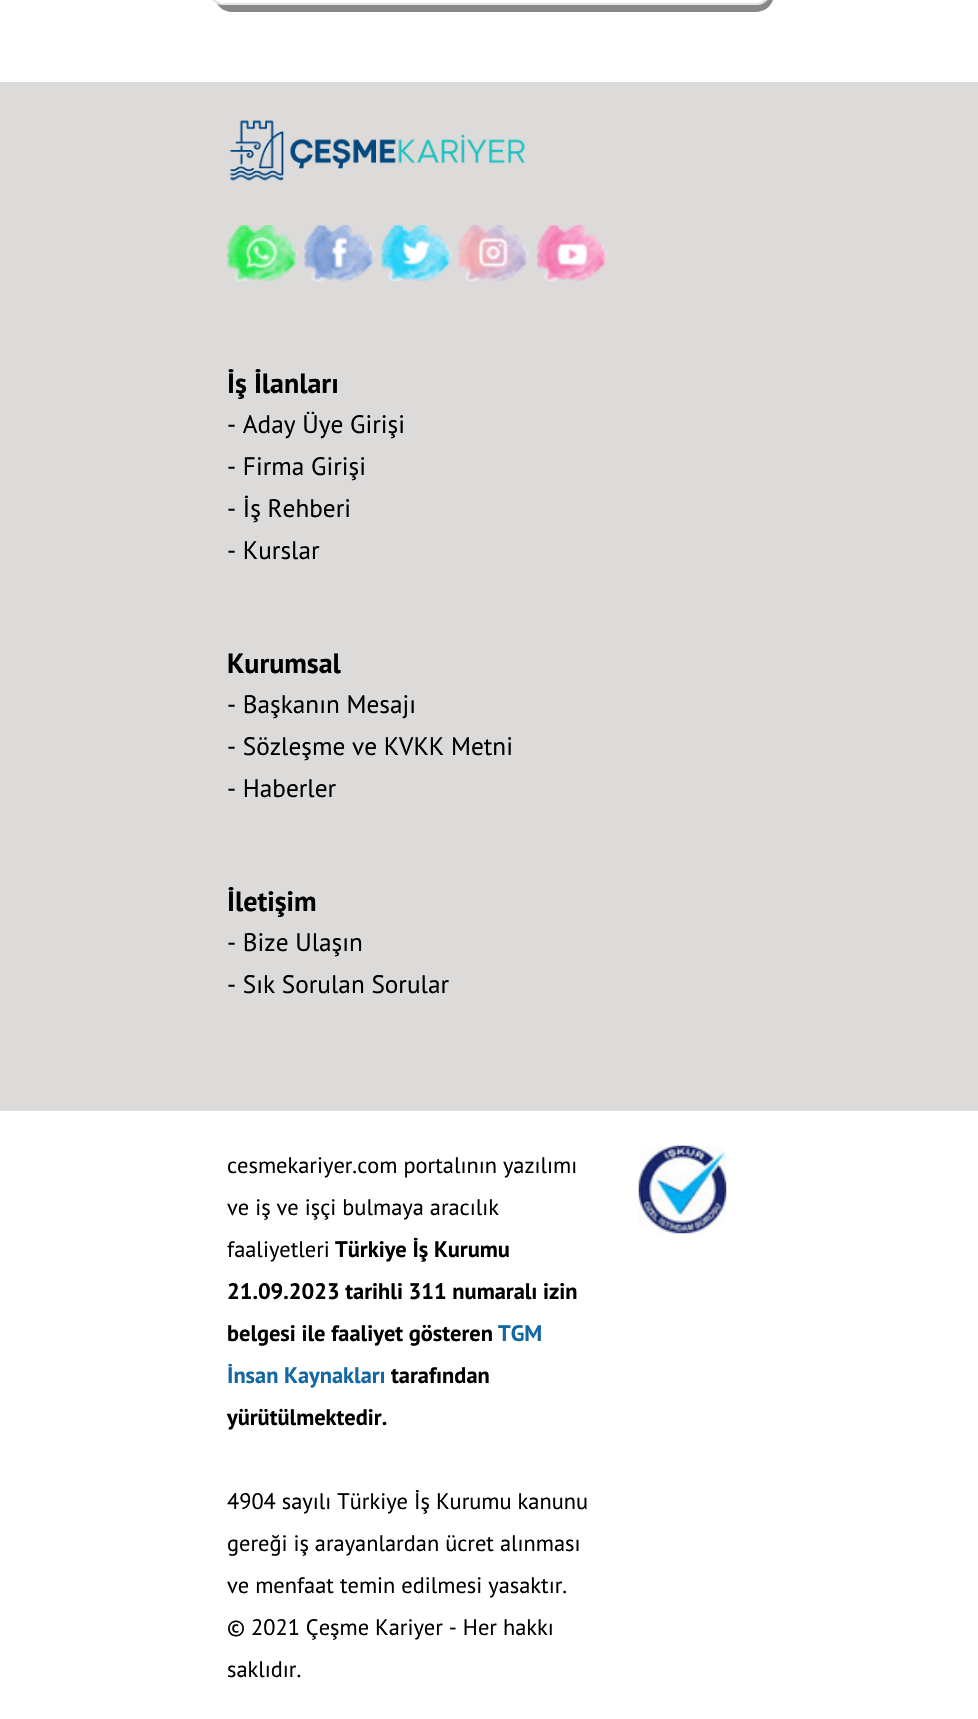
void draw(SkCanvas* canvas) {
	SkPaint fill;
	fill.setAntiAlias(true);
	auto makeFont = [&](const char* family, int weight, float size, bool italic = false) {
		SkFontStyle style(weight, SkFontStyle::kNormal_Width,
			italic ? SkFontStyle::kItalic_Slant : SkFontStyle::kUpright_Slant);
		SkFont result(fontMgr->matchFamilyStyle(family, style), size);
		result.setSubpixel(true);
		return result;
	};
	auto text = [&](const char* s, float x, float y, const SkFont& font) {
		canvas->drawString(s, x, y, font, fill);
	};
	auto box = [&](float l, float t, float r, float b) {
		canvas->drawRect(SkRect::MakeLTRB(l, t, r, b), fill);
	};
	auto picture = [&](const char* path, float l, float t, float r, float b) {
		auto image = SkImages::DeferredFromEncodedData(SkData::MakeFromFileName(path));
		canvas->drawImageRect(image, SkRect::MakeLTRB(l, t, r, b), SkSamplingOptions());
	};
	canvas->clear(0xFFFFFFFF);
	fill.setColor(0xFF888888);
	canvas->drawPath(SkPathBuilder().moveTo(215, 0).cubicTo(218, 7, 224, 12, 232, 12).lineTo(756, 12).cubicTo(766, 12, 774, 4, 774, -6).lineTo(774, -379).cubicTo(774, -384, 772, -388, 770, -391).lineTo(770, -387).lineTo(770, -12).cubicTo(770, -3, 762, 5, 752, 5).lineTo(228, 5).cubicTo(223, 5, 218, 3, 215, 0).close().detach(), fill);
	fill.setStyle(SkPaint::kStroke_Style);
	fill.setStrokeWidth(2);
	fill.setColor(0xFFE5E5E5);
	canvas->drawRoundRect(SkRect::MakeLTRB(211, -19, 769, 4), 17, 17, fill);
	fill.setStyle(SkPaint::kFill_Style);
	fill.setColor(0xFFDDDADA);
	box(0, 82, 978, 1111);
	picture("image0.png", 229, 120, 525, 181);
	picture("image1.png", 227, 225, 298, 282);
	picture("image2.png", 304, 225, 375, 282);
	picture("image3.png", 381, 225, 452, 282);
	picture("image4.png", 458, 225, 529, 282);
	picture("image5.png", 537, 225, 608, 282);
	picture("image6.png", 638, 1145, 727, 1234);
	auto font1 = makeFont("PT Sans", 700, 28);
	fill.setColor(0xFF000000);
	text("İş İlanları", 227, 393, font1);
	auto font2 = makeFont("PT Sans", 400, 25.25f);
	text("- Aday Üye Girişi", 227, 433, font2);
	text("- Firma Girişi", 227, 475, font2);
	text("- İş Rehberi", 227, 517, font2);
	text("- Kurslar", 227, 559, font2);
	text("Kurumsal", 227, 673, font1);
	text("- Başkanın Mesajı", 227, 713, font2);
	text("- Sözleşme ve KVKK Metni", 227, 755, font2);
	text("- Haberler", 227, 797, font2);
	text("İletişim", 227, 911, font1);
	text("- Bize Ulaşın", 227, 951, font2);
	text("- Sık Sorulan Sorular", 227, 993, font2);
	auto font3 = makeFont("PT Sans", 400, 22.4f);
	text("cesmekariyer.com portalının yazılımı", 227, 1173, font3);
	text("ve iş ve işçi bulmaya aracılık", 227, 1215, font3);
	text("faaliyetleri", 227, 1257, font3);
	auto font4 = makeFont("PT Sans", 700, 22.4f);
	text("Türkiye İş Kurumu", 335, 1257, font4);
	text("21.09.2023 tarihli 311 numaralı izin", 227, 1299, font4);
	text("belgesi ile faaliyet gösteren", 227, 1341, font4);
	fill.setColor(0xFF1367A3);
	text("TGM", 498, 1341, font4);
	text("İnsan Kaynakları", 227, 1383, font4);
	fill.setColor(0xFF000000);
	text("tarafından", 391, 1383, font4);
	text("yürütülmektedir.", 227, 1425, font4);
	text("4904 sayılı Türkiye İş Kurumu kanunu", 227, 1509, font3);
	text("gereği iş arayanlardan ücret alınması", 227, 1551, font3);
	text("ve menfaat temin edilmesi yasaktır.", 227, 1593, font3);
	text("© 2021 Çeşme Kariyer - Her hakkı", 227, 1635, font3);
	text("saklıdır.", 227, 1677, font3);
}
